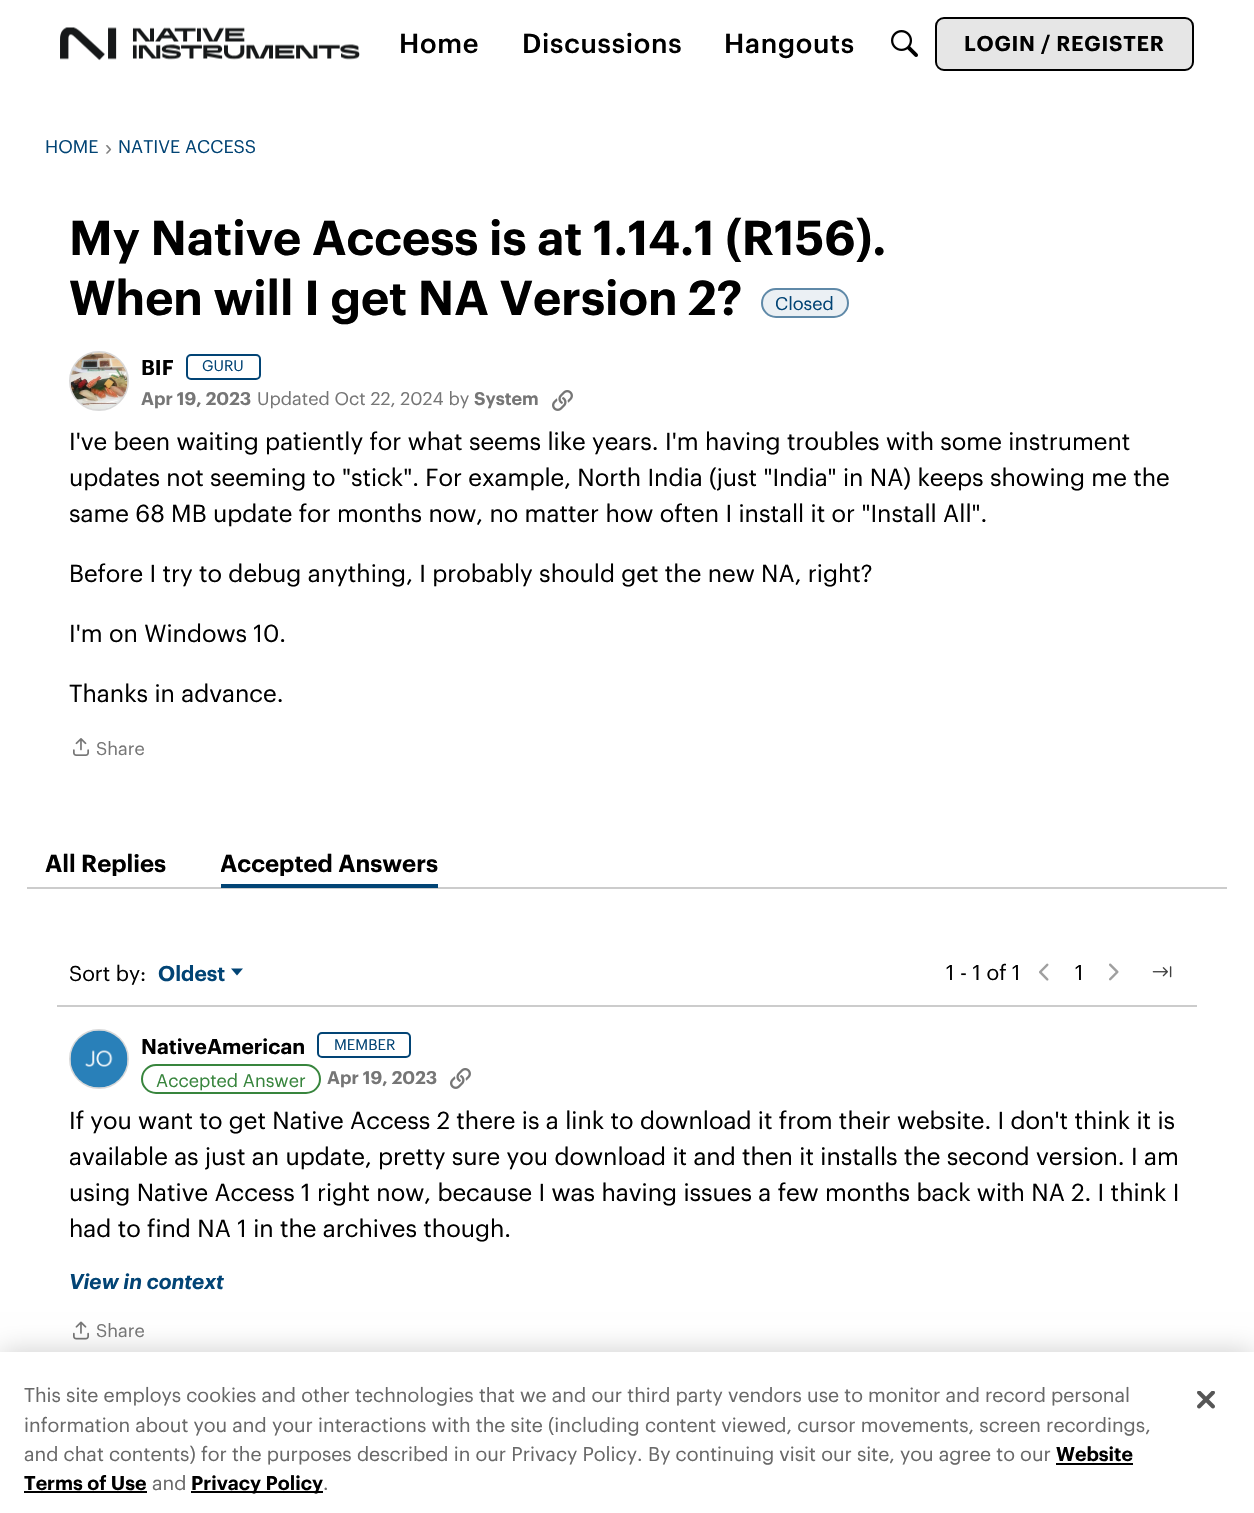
void draw(SkCanvas* canvas) {
	SkPaint fill;
	fill.setAntiAlias(true);
	auto makeFont = [&](const char* family, int weight, float size, bool italic = false) {
		SkFontStyle style(weight, SkFontStyle::kNormal_Width,
			italic ? SkFontStyle::kItalic_Slant : SkFontStyle::kUpright_Slant);
		SkFont result(fontMgr->matchFamilyStyle(family, style), size);
		result.setSubpixel(true);
		return result;
	};
	auto text = [&](const char* s, float x, float y, const SkFont& font) {
		canvas->drawString(s, x, y, font, fill);
	};
	auto spacedText = [&](const char* s, float x, float y, const SkFont& font, const SkPaint& ink, float letter, float word) {
		std::vector<SkGlyphID> glyphs(font.countText(s, strlen(s), SkTextEncoding::kUTF8));
		std::vector<float> xs(glyphs.size());
		font.textToGlyphs(s, strlen(s), SkTextEncoding::kUTF8, glyphs);
		font.getXPos(glyphs, xs, x);
		float extra = 0;
		for (size_t i = 0; i < glyphs.size(); i++) {
			xs[i] += extra;
			extra += letter + word * (glyphs[i] == font.unicharToGlyph(' '));
		}
		canvas->drawTextBlob(SkTextBlob::MakeFromPosHGlyphs(glyphs, xs, y, font), 0, 0, ink);
	};
	auto box = [&](float l, float t, float r, float b) {
		canvas->drawRect(SkRect::MakeLTRB(l, t, r, b), fill);
	};
	auto roundBox = [&](float l, float t, float r, float b, float radius) {
		canvas->drawRoundRect(SkRect::MakeLTRB(l, t, r, b), radius, radius, fill);
	};
	auto picture = [&](const char* path, float l, float t, float r, float b) {
		auto image = SkImages::DeferredFromEncodedData(SkData::MakeFromFileName(path));
		canvas->drawImageRect(image, SkRect::MakeLTRB(l, t, r, b), SkSamplingOptions());
	};
	canvas->clear(0xFFFFFFFF);
	picture("image0.png", 60, 27, 360, 61);
	picture("image1.png", 891, 30, 918, 57);
	fill.setColor(0xFFE6E6E6);
	canvas->drawRoundRect(SkRect::MakeLTRB(936, 18, 1193, 70), 8, 8, fill);
	fill.setStyle(SkPaint::kStroke_Style);
	fill.setStrokeWidth(2);
	fill.setColor(0xFF000000);
	canvas->drawRoundRect(SkRect::MakeLTRB(936, 18, 1193, 70), 8, 8, fill);
	fill.setStyle(SkPaint::kFill_Style);
	fill.setColor(0xFFEBF0F4);
	roundBox(761, 288, 849, 318, 15);
	fill.setStyle(SkPaint::kStroke_Style);
	fill.setColor(0x99024475);
	canvas->drawRoundRect(SkRect::MakeLTRB(762, 289, 848, 317), 14, 14, fill);
	fill.setColor(0xFFD9D9D9);
	canvas->drawCircle(99, 381, 29, fill);
	picture("image2.png", 70, 352, 128, 409);
	fill.setColor(0xFF024475);
	canvas->drawRoundRect(SkRect::MakeLTRB(187, 355, 260, 379), 4, 4, fill);
	picture("image3.png", 552, 390, 573, 411);
	picture("image4.png", 73, 738, 89, 756);
	fill.setStyle(SkPaint::kFill_Style);
	fill.setColor(0xFFCCCCCC);
	box(27, 887, 1227, 889);
	fill.setColor(0xFF024475);
	box(221, 884, 438, 888);
	canvas->drawPath(SkPathBuilder().moveTo(231, 968.5f).lineTo(243, 968.5f).lineTo(237, 975.5f).close().detach(), fill);
	picture("image5.png", 1039, 963, 1049, 981);
	picture("image6.png", 1109, 963, 1119, 981);
	picture("image7.png", 1152, 966, 1172, 978);
	fill.setColor(0xFFCCCCCC);
	box(57, 1005, 1197, 1007);
	fill.setStyle(SkPaint::kStroke_Style);
	fill.setColor(0xFFD9D9D9);
	canvas->drawCircle(99, 1059, 29, fill);
	picture("image8.png", 70, 1030, 128, 1088);
	fill.setColor(0xFF024475);
	canvas->drawRoundRect(SkRect::MakeLTRB(318, 1033, 410, 1057), 4, 4, fill);
	fill.setColor(0xFF38853D);
	canvas->drawRoundRect(SkRect::MakeLTRB(142, 1065, 320, 1093), 14, 14, fill);
	picture("image3.png", 450, 1068, 471, 1089);
	picture("image9.png", 73, 1321, 89, 1340);
	fill.setStyle(SkPaint::kFill_Style);
	fill.setColor(0x33000000);
	fill.setMaskFilter(SkMaskFilter::MakeBlur(kNormal_SkBlurStyle, 13.5f));
	canvas->drawRect(SkRect::MakeLTRB(0, 1352, 1254, 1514), fill);
	fill.setMaskFilter(nullptr);
	fill.setColor(0xFFFFFFFF);
	box(0, 1352, 1254, 1513);
	fill.setColor(0xFF000000);
	box(1056, 1463, 1133, 1465);
	box(24, 1491, 147, 1493);
	box(191, 1491, 323, 1493);
	picture("image10.png", 1197, 1391, 1215, 1409);
	auto font1 = makeFont("Graphik", 500, 27);
	spacedText("Home", 399, 53, font1, fill, 0.75f, 0);
	spacedText("Discussions", 522, 53, font1, fill, 0.75f, 0);
	spacedText("Hangouts", 724, 53, font1, fill, 0.75f, 0);
	auto font2 = makeFont("Graphik", 600, 21);
	spacedText("LOGIN / REGISTER", 964, 51, font2, fill, 0.75f, 0);
	auto font3 = makeFont("Graphik", 400, 18);
	fill.setColor(0xFF024475);
	text("HOME", 45, 153, font3);
	auto font4 = makeFont("Liberation Sans", 400, 21);
	fill.setColor(0xFF808080);
	text("›", 105, 155, font4);
	fill.setColor(0xFF024475);
	text("NATIVE ACCESS", 118, 153, font3);
	auto font5 = makeFont("Graphik", 600, 48);
	fill.setColor(0xFF000000);
	text("My Native Access is at 1.14.1 (R156).", 69, 255, font5);
	text("When will I get NA Version 2?", 69, 315, font5);
	fill.setColor(0xFF024475);
	text("Closed", 775, 310, font3);
	fill.setColor(0xFF000000);
	text("BIF", 141, 375, font2);
	auto font6 = makeFont("Graphik", 400, 15);
	fill.setColor(0xFF024475);
	text("GURU", 202, 371, font6);
	auto font7 = makeFont("Graphik", 600, 18);
	fill.setColor(0xFF767676);
	text("Apr 19, 2023", 141, 405, font7);
	text("Updated Oct 22, 2024 by", 257, 405, font3);
	text("System", 474, 405, font7);
	auto font8 = makeFont("Graphik", 400, 24);
	fill.setColor(0xFF000000);
	text("I've been waiting patiently for what seems like years. I'm having troubles with some instrument", 69, 450, font8);
	text("updates not seeming to \"stick\". For example, North India (just \"India\" in NA) keeps showing me the", 69, 486, font8);
	text("same 68 MB update for months now, no matter how often I install it or \"Install All\".", 69, 522, font8);
	text("Before I try to debug anything, I probably should get the new NA, right?", 69, 582, font8);
	text("I'm on Windows 10.", 69, 642, font8);
	text("Thanks in advance.", 69, 702, font8);
	fill.setColor(0xFF767676);
	text("Share", 96, 755, font3);
	canvas->save();
	canvas->clipRect(SkRect::MakeLTRB(45, 849, 167, 876));
	auto font9 = makeFont("Graphik", 600, 24);
	fill.setColor(0xFF000000);
	text("All Replies", 45, 872, font9);
	canvas->restore();
	canvas->save();
	canvas->clipRect(SkRect::MakeLTRB(221, 849, 438, 876));
	text("Accepted Answers", 220, 872, font9);
	canvas->restore();
	auto font10 = makeFont("Graphik", 400, 21);
	text("Sort by:", 69, 981, font10);
	fill.setColor(0xFF024475);
	text("Oldest", 158, 981, font2);
	fill.setColor(0xFF000000);
	text("1 - 1 of 1", 946, 980, font10);
	text("1", 1075, 980, font10);
	text("NativeAmerican", 141, 1054, font2);
	fill.setColor(0xFF024475);
	text("MEMBER", 334, 1050, font6);
	fill.setColor(0xFF38853D);
	text("Accepted Answer", 156, 1087, font3);
	fill.setColor(0xFF767676);
	text("Apr 19, 2023", 327, 1084, font7);
	fill.setColor(0xFF000000);
	text("If you want to get Native Access 2 there is a link to download it from their website. I don't think it is", 69, 1129, font8);
	text("available as just an update, pretty sure you download it and then it installs the second version. I am", 69, 1165, font8);
	text("using Native Access 1 right now, because I was having issues a few months back with NA 2. I think I", 69, 1201, font8);
	text("had to find NA 1 in the archives though.", 69, 1237, font8);
	auto font11 = makeFont("Graphik", 600, 21, true);
	fill.setColor(0xFF024475);
	text("View in context", 69, 1289, font11);
	fill.setColor(0xFF767676);
	text("Share", 96, 1337, font3);
	auto font12 = makeFont("Graphik", 400, 19.5f);
	fill.setColor(0xFF696969);
	text("This site employs cookies and other technologies that we and our third party vendors use to monitor and record personal", 24, 1402, font12);
	text("information about you and your interactions with the site (including content viewed, cursor movements, screen recordings,", 24, 1432, font12);
	text("and chat contents) for the purposes described in our Privacy Policy.", 24, 1461, font12);
	text("By continuing visit our site, you agree to our", 648, 1461, font12);
	auto font13 = makeFont("Graphik", 600, 19.5f);
	fill.setColor(0xFF000000);
	text("Website", 1056, 1461, font13);
	text("Terms of Use", 24, 1490, font13);
	fill.setColor(0xFF696969);
	text("and", 152, 1490, font12);
	fill.setColor(0xFF000000);
	text("Privacy Policy", 191, 1490, font13);
	fill.setColor(0xFF696969);
	text(".", 323, 1490, font12);
}
